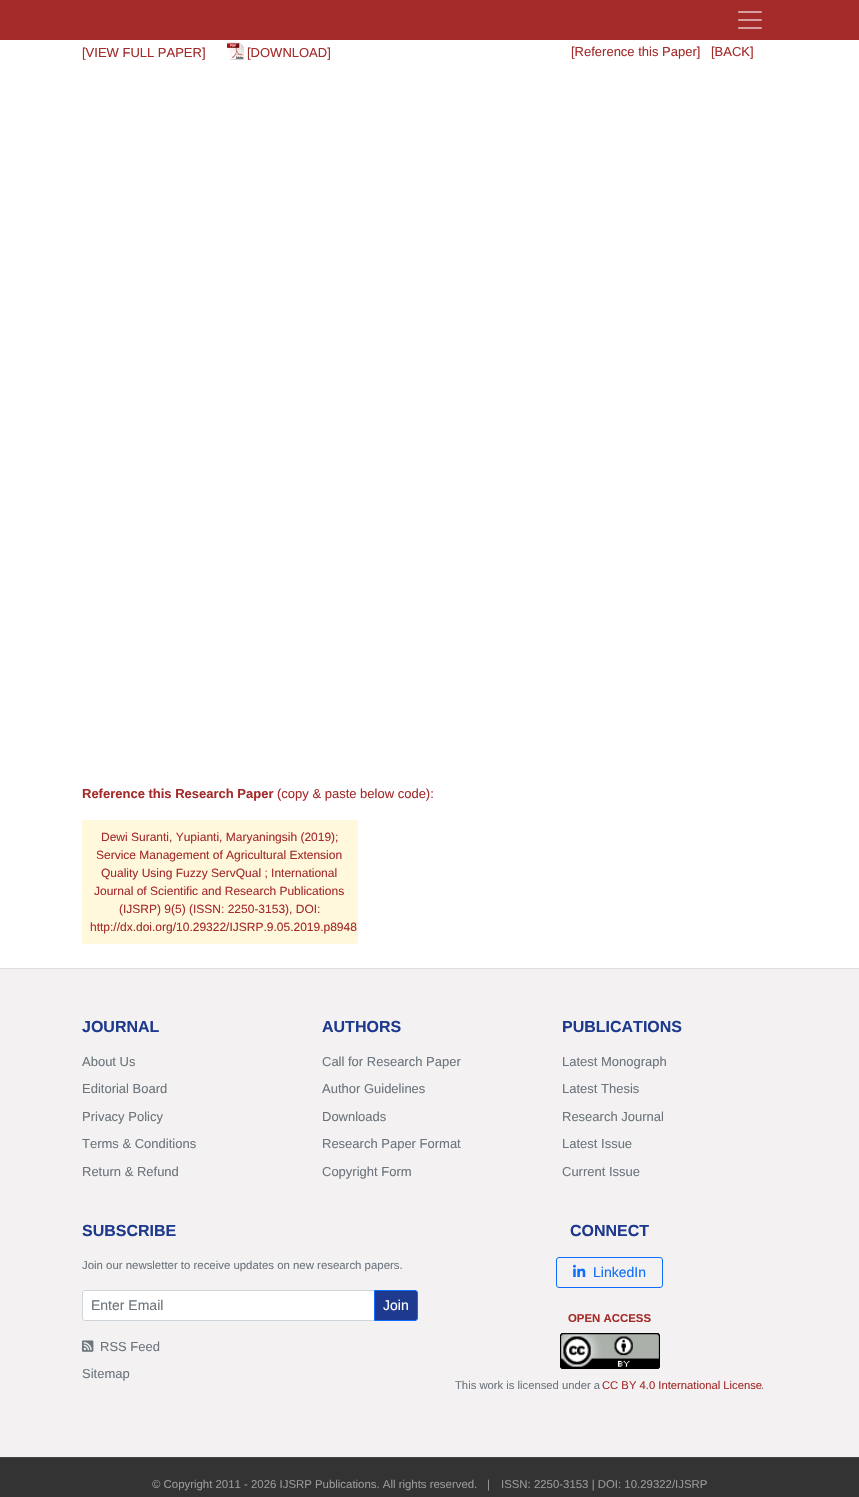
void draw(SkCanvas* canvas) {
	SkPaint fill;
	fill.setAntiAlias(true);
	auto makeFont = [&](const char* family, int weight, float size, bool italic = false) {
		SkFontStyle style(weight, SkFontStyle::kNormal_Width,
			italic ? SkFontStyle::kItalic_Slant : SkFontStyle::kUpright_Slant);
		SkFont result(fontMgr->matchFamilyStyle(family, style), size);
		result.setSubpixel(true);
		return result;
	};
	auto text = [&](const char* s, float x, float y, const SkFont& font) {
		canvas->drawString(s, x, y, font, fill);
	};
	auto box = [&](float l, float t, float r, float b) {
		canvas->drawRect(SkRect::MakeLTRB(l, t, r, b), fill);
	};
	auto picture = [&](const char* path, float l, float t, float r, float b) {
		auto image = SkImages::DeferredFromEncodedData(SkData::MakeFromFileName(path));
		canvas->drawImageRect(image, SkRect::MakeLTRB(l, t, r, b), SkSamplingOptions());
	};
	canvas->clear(0xFFFFFFFF);
	fill.setColor(0xFFA52A2A);
	box(0, 0, 859, 40);
	picture("image0.png", 738, 11, 762, 29);
	picture("image1.png", 227, 42, 244, 60);
	fill.setColor(0xFFFFF8DC);
	box(82, 820, 358, 944);
	fill.setColor(0xFFF3F1F1);
	box(0, 969, 859, 1457);
	fill.setColor(0xFFE0E0E0);
	box(0, 968, 859, 969);
	fill.setColor(0xFFFFFFFF);
	canvas->drawPath(SkPathBuilder().moveTo(85, 1290.5f).lineTo(374.5f, 1290.5f).lineTo(374.5f, 1320.5f).lineTo(85, 1320.5f).cubicTo(83.5f, 1320.5f, 82.5f, 1319.5f, 82.5f, 1318).lineTo(82.5f, 1293).cubicTo(82.5f, 1291.5f, 83.5f, 1290.5f, 85, 1290.5f).close().detach(), fill);
	fill.setStyle(SkPaint::kStroke_Style);
	fill.setStrokeWidth(1);
	fill.setColor(0xFFCED4DA);
	canvas->drawPath(SkPathBuilder().moveTo(85, 1290.5f).lineTo(374.5f, 1290.5f).lineTo(374.5f, 1320.5f).lineTo(85, 1320.5f).cubicTo(83.5f, 1320.5f, 82.5f, 1319.5f, 82.5f, 1318).lineTo(82.5f, 1293).cubicTo(82.5f, 1291.5f, 83.5f, 1290.5f, 85, 1290.5f).close().detach(), fill);
	fill.setStyle(SkPaint::kFill_Style);
	fill.setColor(0xFF1E3A8E);
	canvas->drawPath(SkPathBuilder().moveTo(374.5f, 1290.5f).lineTo(415, 1290.5f).cubicTo(416.5f, 1290.5f, 417.5f, 1291.5f, 417.5f, 1293).lineTo(417.5f, 1318).cubicTo(417.5f, 1319.5f, 416.5f, 1320.5f, 415, 1320.5f).lineTo(374.5f, 1320.5f).close().detach(), fill);
	fill.setStyle(SkPaint::kStroke_Style);
	fill.setColor(0xFF0D6EFD);
	canvas->drawPath(SkPathBuilder().moveTo(374.5f, 1290.5f).lineTo(415, 1290.5f).cubicTo(416.5f, 1290.5f, 417.5f, 1291.5f, 417.5f, 1293).lineTo(417.5f, 1318).cubicTo(417.5f, 1319.5f, 416.5f, 1320.5f, 415, 1320.5f).lineTo(374.5f, 1320.5f).close().detach(), fill);
	picture("image2.png", 82, 1340, 94, 1352);
	canvas->drawRoundRect(SkRect::MakeLTRB(556.5f, 1257.5f, 662.5f, 1287.5f), 2.5f, 2.5f, fill);
	picture("image3.png", 573, 1264, 586, 1277);
	picture("image4.png", 560, 1333, 660, 1369);
	fill.setStyle(SkPaint::kFill_Style);
	fill.setColor(0xFF333333);
	box(0, 1458, 859, 1497);
	fill.setColor(0xFF444444);
	box(0, 1457, 859, 1458);
	auto font1 = makeFont("Liberation Sans", 400, 13);
	fill.setColor(0xFFA52A2A);
	text("[VIEW FULL PAPER]", 82, 57, font1);
	text("[DOWNLOAD]", 247, 57, font1);
	text("[Reference this Paper]", 571, 56, font1);
	text("[BACK]", 711, 56, font1);
	auto font2 = makeFont("Liberation Sans", 700, 13);
	text("Reference this Research Paper", 82, 798, font2);
	text("(copy & paste below code):", 277, 798, font1);
	auto font3 = makeFont("Liberation Sans", 400, 12);
	text("Dewi Suranti, Yupianti, Maryaningsih (2019);", 101, 841, font3);
	text("Service Management of Agricultural Extension", 96, 859, font3);
	text("Quality Using Fuzzy ServQual ; International", 101, 877, font3);
	text("Journal of Scientific and Research Publications", 94, 895, font3);
	text("(IJSRP) 9(5) (ISSN: 2250-3153), DOI:", 119, 913, font3);
	text("http://dx.doi.org/10.29322/IJSRP.9.05.2019.p8948", 90, 931, font3);
	auto font4 = makeFont("Liberation Sans", 700, 16);
	fill.setColor(0xFF1E3A8E);
	text("JOURNAL", 82, 1032, font4);
	fill.setColor(0xFF6C757D);
	text("About Us", 82, 1066, font1);
	text("Editorial Board", 82, 1093, font1);
	text("Privacy Policy", 82, 1121, font1);
	text("Terms & Conditions", 82, 1148, font1);
	text("Return & Refund", 82, 1176, font1);
	fill.setColor(0xFF1E3A8E);
	text("AUTHORS", 322, 1032, font4);
	fill.setColor(0xFF6C757D);
	text("Call for Research Paper", 322, 1066, font1);
	text("Author Guidelines", 322, 1093, font1);
	text("Downloads", 322, 1121, font1);
	text("Research Paper Format", 322, 1148, font1);
	text("Copyright Form", 322, 1176, font1);
	fill.setColor(0xFF1E3A8E);
	text("PUBLICATIONS", 562, 1032, font4);
	fill.setColor(0xFF6C757D);
	text("Latest Monograph", 562, 1066, font1);
	text("Latest Thesis", 562, 1093, font1);
	text("Research Journal", 562, 1121, font1);
	text("Latest Issue", 562, 1148, font1);
	text("Current Issue", 562, 1176, font1);
	fill.setColor(0xFF1E3A8E);
	text("SUBSCRIBE", 82, 1236, font4);
	auto font5 = makeFont("Liberation Sans", 400, 11.4f);
	fill.setColor(0xFF6C757D);
	text("Join our newsletter to receive updates on new research papers.", 82, 1269, font5);
	auto font6 = makeFont("Liberation Sans", 400, 14);
	text("Enter Email", 91, 1310, font6);
	fill.setColor(0xFFFFFFFF);
	text("Join", 383, 1310, font6);
	fill.setColor(0xFF6C757D);
	text("RSS Feed", 100, 1351, font1);
	text("Sitemap", 82, 1378, font1);
	fill.setColor(0xFF1E3A8E);
	text("CONNECT", 570, 1236, font4);
	fill.setColor(0xFF0D6EFD);
	text("LinkedIn", 593, 1277, font6);
	auto font7 = makeFont("Liberation Sans", 700, 11.4f);
	fill.setColor(0xFFA52A2A);
	text("OPEN ACCESS", 568, 1322, font7);
	auto font8 = makeFont("Liberation Sans", 400, 11.25f);
	fill.setColor(0xFF6C757D);
	text("This work is licensed under a", 455, 1389, font8);
	fill.setColor(0xFFA52A2A);
	text("CC BY 4.0 International License", 602, 1389, font8);
	fill.setColor(0xFF6C757D);
	text(".", 761, 1389, font8);
	fill.setColor(0xFF999999);
	text("© Copyright 2011 - 2026 IJSRP Publications. All rights reserved.", 152, 1488, font5);
	text("|", 487, 1488, font5);
	text("ISSN: 2250-3153 | DOI: 10.29322/IJSRP", 501, 1488, font5);
}
